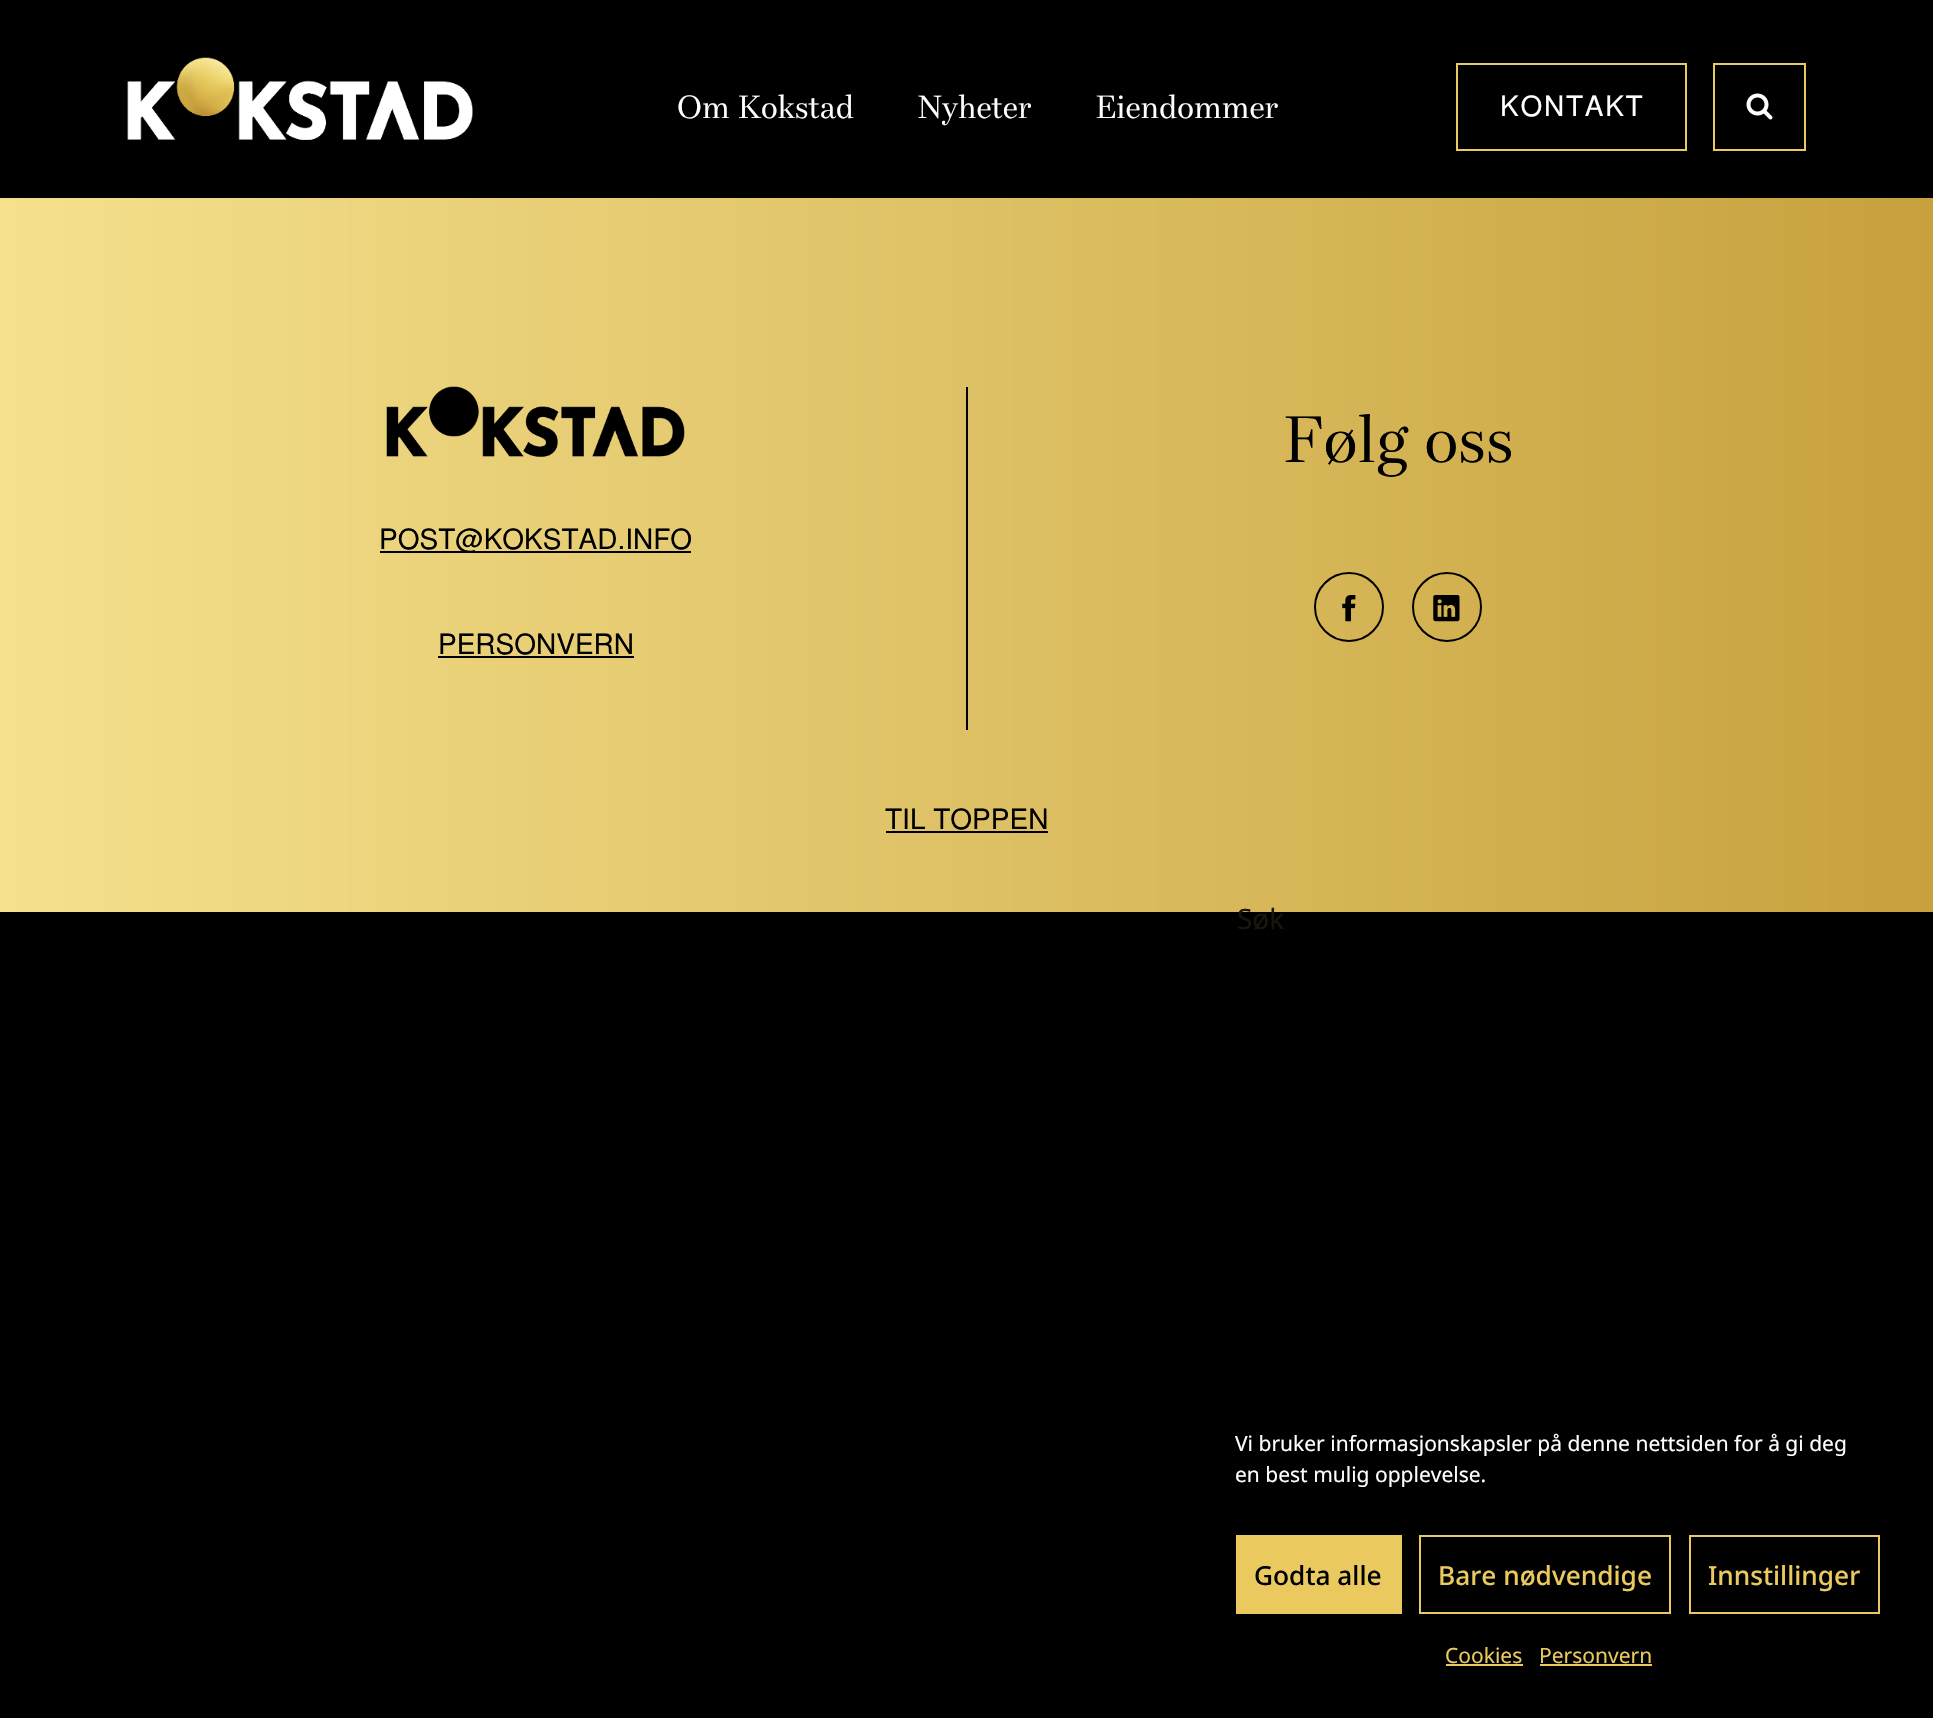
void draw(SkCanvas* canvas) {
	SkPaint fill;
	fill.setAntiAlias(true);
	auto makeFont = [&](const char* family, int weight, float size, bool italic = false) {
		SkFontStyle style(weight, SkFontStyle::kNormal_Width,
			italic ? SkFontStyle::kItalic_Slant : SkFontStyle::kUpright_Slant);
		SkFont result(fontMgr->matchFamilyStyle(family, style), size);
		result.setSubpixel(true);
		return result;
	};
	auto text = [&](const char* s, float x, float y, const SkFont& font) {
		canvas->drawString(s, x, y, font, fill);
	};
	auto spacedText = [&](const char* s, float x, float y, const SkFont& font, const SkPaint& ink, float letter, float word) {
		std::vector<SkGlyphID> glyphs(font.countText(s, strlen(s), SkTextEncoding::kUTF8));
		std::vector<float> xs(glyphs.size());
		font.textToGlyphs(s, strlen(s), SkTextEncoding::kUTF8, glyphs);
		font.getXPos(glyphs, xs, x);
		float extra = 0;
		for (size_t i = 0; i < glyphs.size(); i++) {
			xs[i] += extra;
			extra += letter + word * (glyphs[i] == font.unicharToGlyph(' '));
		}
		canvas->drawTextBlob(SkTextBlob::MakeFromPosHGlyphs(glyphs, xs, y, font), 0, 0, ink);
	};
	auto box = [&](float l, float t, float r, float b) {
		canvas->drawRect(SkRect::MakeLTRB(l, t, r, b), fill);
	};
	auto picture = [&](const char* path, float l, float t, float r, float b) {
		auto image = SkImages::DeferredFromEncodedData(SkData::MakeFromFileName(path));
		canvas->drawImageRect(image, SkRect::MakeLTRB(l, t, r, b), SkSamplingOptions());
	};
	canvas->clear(0xFF000000);
	picture("image0.png", 127, 57, 473, 140);
	fill.setStyle(SkPaint::kStroke_Style);
	fill.setStrokeWidth(2);
	fill.setColor(0xFFEACA5F);
	canvas->drawRect(SkRect::MakeLTRB(1457, 64, 1686, 150), fill);
	canvas->drawRect(SkRect::MakeLTRB(1714, 64, 1805, 150), fill);
	picture("image1.png", 1746, 93, 1773, 120);
	fill.setStyle(SkPaint::kFill_Style);
	{
		const SkColor colors[] = {0xFFF5E18D, 0xFFC7A13D};
		const float stops[] = {0, 1};
		const SkPoint ends[] = {{0, 555}, {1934, 555}};
		fill.setShader(SkGradientShader::MakeLinear(ends, colors, stops, 2, SkTileMode::kClamp));
		fill.setAlpha(255);
	}
	box(0, 198, 1933, 912);
	fill.setStyle(SkPaint::kStroke_Style);
	fill.setShader(nullptr);
	fill.setColor(0xFF000000);
	canvas->drawCircle(1349, 607, 34, fill);
	picture("image2.png", 1342, 595, 1356, 622);
	canvas->drawCircle(1447, 607, 34, fill);
	picture("image3.png", 1433, 595, 1460, 622);
	fill.setStyle(SkPaint::kFill_Style);
	box(966, 387, 968, 730);
	picture("image4.png", 386, 386, 685, 457);
	box(380, 551, 691, 553);
	box(438, 656, 634, 658);
	box(886, 831, 1048, 833);
	fill.setColor(0xFFEACA5F);
	box(1236, 1535, 1402, 1614);
	fill.setStyle(SkPaint::kStroke_Style);
	canvas->drawRect(SkRect::MakeLTRB(1420, 1536, 1670, 1613), fill);
	canvas->drawRect(SkRect::MakeLTRB(1690, 1536, 1879, 1613), fill);
	fill.setStyle(SkPaint::kFill_Style);
	box(1446, 1664, 1523, 1666);
	box(1540, 1664, 1652, 1666);
	auto font1 = makeFont("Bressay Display", 400, 31.5f);
	fill.setColor(0xFFFFFFFF);
	text("Om Kokstad", 677, 118, font1);
	text("Nyheter", 917, 118, font1);
	text("Eiendommer", 1095, 118, font1);
	auto font2 = makeFont("FreeSans", 400, 28);
	spacedText("KONTAKT", 1500, 116, font2, fill, 1.75f, 0);
	auto font3 = makeFont("Bressay Display", 400, 64.5f);
	fill.setColor(0xFF000000);
	text("Følg oss", 1282, 462, font3);
	text("POST@KOKSTAD.INFO", 379, 549, font2);
	text("PERSONVERN", 438, 654, font2);
	text("TIL TOPPEN", 885, 829, font2);
	auto font4 = makeFont("Noto Sans", 400, 28);
	fill.setColor(0xFF1A160B);
	text("Søk", 1237, 929, font4);
	auto font5 = makeFont("Noto Sans", 400, 21);
	fill.setColor(0xFFFFFFFF);
	text("Vi bruker informasjonskapsler på denne nettsiden for å gi deg", 1235, 1451, font5);
	text("en best mulig opplevelse.", 1235, 1482, font5);
	auto font6 = makeFont("Noto Sans", 500, 26.25f);
	fill.setColor(0xFF000000);
	text("Godta alle", 1254, 1585, font6);
	fill.setColor(0xFFEACA5F);
	text("Bare nødvendige", 1438, 1585, font6);
	text("Innstillinger", 1708, 1585, font6);
	text("Cookies", 1445, 1663, font5);
	text("Personvern", 1539, 1663, font5);
}
